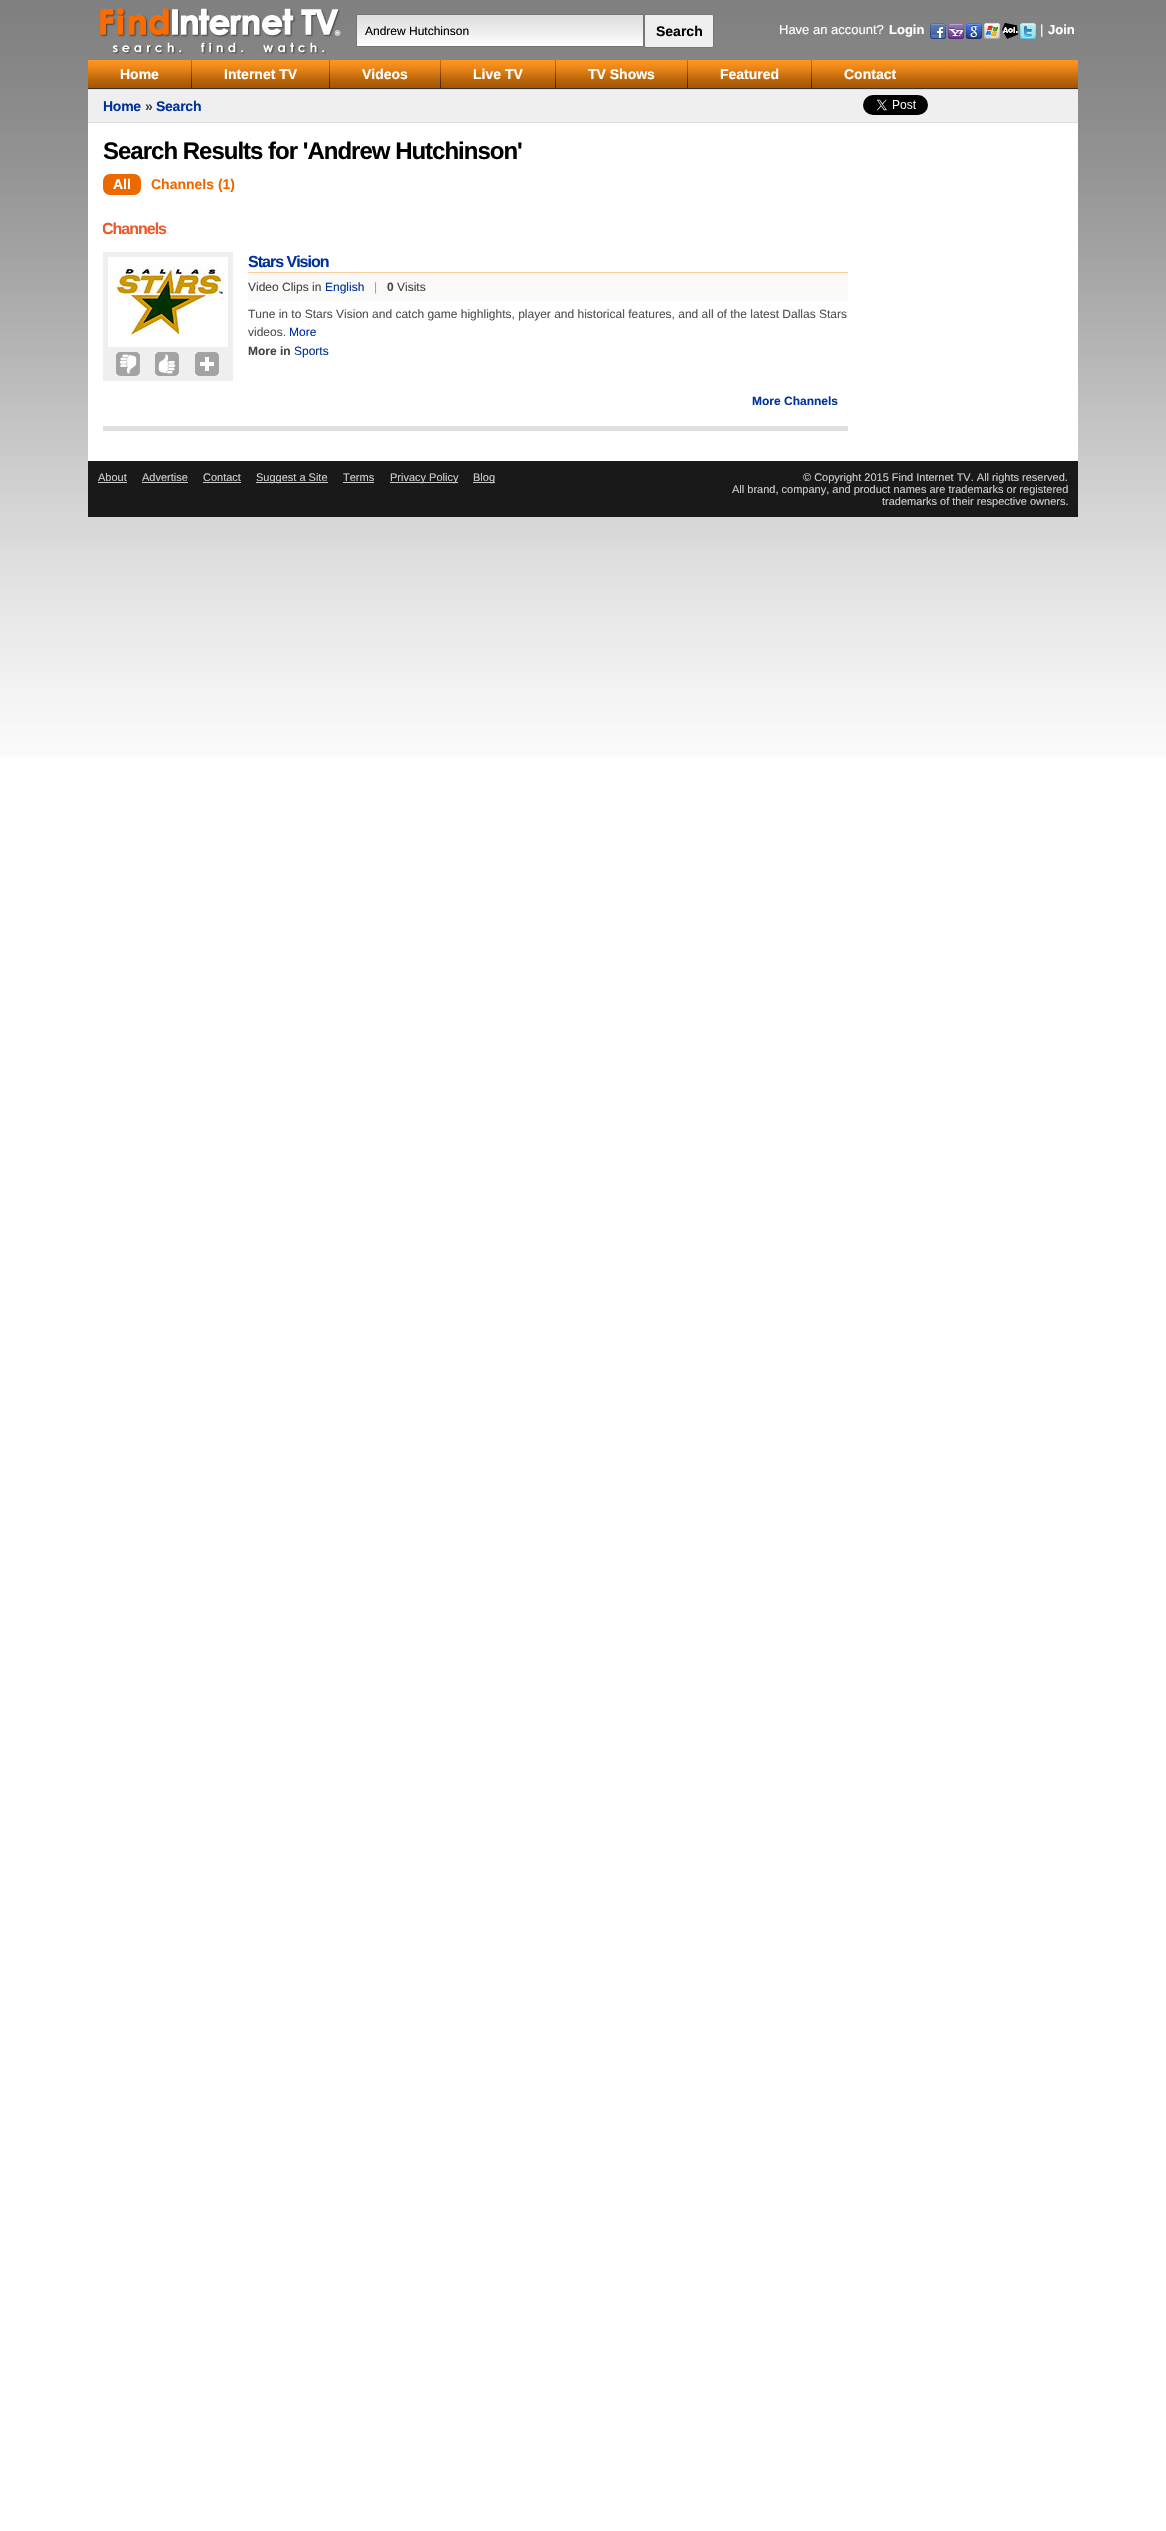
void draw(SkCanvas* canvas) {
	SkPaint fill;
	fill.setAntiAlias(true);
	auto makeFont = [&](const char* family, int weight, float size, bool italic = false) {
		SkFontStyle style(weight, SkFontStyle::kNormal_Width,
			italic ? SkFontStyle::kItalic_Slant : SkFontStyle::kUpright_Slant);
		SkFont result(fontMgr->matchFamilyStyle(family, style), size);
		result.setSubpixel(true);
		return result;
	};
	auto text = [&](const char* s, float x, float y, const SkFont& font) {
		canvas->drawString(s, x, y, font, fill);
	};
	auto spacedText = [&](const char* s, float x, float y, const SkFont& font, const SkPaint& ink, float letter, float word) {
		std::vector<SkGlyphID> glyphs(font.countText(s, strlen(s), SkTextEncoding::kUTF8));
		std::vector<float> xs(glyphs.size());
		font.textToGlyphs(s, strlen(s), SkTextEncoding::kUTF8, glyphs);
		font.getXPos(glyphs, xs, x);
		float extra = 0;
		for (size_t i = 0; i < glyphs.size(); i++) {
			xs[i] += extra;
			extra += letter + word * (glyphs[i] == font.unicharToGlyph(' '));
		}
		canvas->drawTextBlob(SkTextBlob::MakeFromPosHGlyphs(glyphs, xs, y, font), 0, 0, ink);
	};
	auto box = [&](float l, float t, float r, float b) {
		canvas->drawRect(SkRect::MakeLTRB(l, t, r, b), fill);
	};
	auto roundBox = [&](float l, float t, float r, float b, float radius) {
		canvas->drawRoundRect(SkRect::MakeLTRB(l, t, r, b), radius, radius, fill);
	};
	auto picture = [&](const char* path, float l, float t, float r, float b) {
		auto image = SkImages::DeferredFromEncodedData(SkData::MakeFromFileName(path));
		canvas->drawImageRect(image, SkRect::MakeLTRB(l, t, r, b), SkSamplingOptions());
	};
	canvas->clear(0xFFFFFFFF);
	picture("image0.png", 0, 0, 1166, 757);
	picture("image1.png", 100, 8, 341, 54);
	fill.setColor(0xFFFFFFFF);
	box(357, 43, 643, 46);
	picture("image2.png", 357, 15, 643, 43);
	fill.setStyle(SkPaint::kStroke_Style);
	fill.setStrokeWidth(1);
	fill.setColor(0xFF757777);
	canvas->drawRect(SkRect::MakeLTRB(356.5f, 14.5f, 643.5f, 46.5f), fill);
	fill.setStyle(SkPaint::kFill_Style);
	fill.setColor(0xFFEFEFEF);
	canvas->drawRoundRect(SkRect::MakeLTRB(644.5f, 14.5f, 713.5f, 47.5f), 1.5f, 1.5f, fill);
	fill.setStyle(SkPaint::kStroke_Style);
	fill.setColor(0xFF767676);
	canvas->drawRoundRect(SkRect::MakeLTRB(644.5f, 14.5f, 713.5f, 47.5f), 1.5f, 1.5f, fill);
	picture("image3.png", 930, 23, 946, 39);
	picture("image4.png", 948, 23, 964, 39);
	picture("image5.png", 966, 23, 982, 39);
	picture("image6.png", 984, 23, 1000, 39);
	picture("image7.png", 1002, 23, 1018, 39);
	picture("image8.png", 1020, 23, 1036, 39);
	fill.setStyle(SkPaint::kFill_Style);
	fill.setColor(0xFF333333);
	box(88, 88, 1078, 89);
	picture("image9.png", 88, 60, 1078, 88);
	picture("image10.png", 191, 60, 192, 88);
	picture("image10.png", 329, 60, 330, 88);
	picture("image10.png", 440, 60, 441, 88);
	picture("image10.png", 555, 60, 556, 88);
	picture("image10.png", 687, 60, 688, 88);
	picture("image10.png", 811, 60, 812, 88);
	fill.setColor(0xFFEFEFEF);
	box(88, 90, 1078, 122);
	fill.setColor(0xFFDDDDDD);
	box(88, 89, 1078, 90);
	box(88, 122, 1078, 123);
	picture("image11.png", 863, 95, 928, 115);
	fill.setColor(0xFFFFFFFF);
	box(88, 123, 1078, 461);
	fill.setColor(0xFFEC6900);
	roundBox(103, 174, 141, 195, 7);
	fill.setColor(0xFFE0E0E0);
	box(103, 426, 848, 431);
	fill.setColor(0xFFEFEFEF);
	box(103, 252, 233, 381);
	picture("image12.png", 108, 257, 228, 347);
	picture("image13.png", 116, 352, 140, 376);
	picture("image14.png", 155, 352, 179, 376);
	picture("image15.png", 195, 352, 219, 376);
	fill.setColor(0xFFFAFAFA);
	box(248, 273, 848, 301);
	fill.setColor(0xFFFFCC99);
	box(248, 272, 848, 273);
	fill.setColor(0xFF191919);
	box(88, 461, 1078, 517);
	fill.setColor(0xFFCCCCCC);
	box(98, 482, 127, 483);
	box(142, 482, 188, 483);
	box(203, 482, 241, 483);
	box(256, 482, 328, 483);
	box(343, 482, 374, 483);
	box(390, 482, 458, 483);
	box(473, 482, 495, 483);
	auto font1 = makeFont("Liberation Sans", 400, 12);
	fill.setColor(0xFF000000);
	text("Andrew Hutchinson", 365, 35, font1);
	auto font2 = makeFont("Liberation Sans", 700, 14);
	text("Search", 656, 36, font2);
	auto font3 = makeFont("Liberation Sans", 400, 13);
	fill.setColor(0xFFFFFFFF);
	text("Have an account?", 779, 34, font3);
	auto font4 = makeFont("Liberation Sans", 700, 13);
	text("Login", 889, 34, font4);
	text("|", 1040, 34, font3);
	text("Join", 1048, 34, font4);
	text("Home", 120, 79, font2);
	text("Internet TV", 224, 79, font2);
	text("Videos", 362, 79, font2);
	text("Live TV", 473, 79, font2);
	text("TV Shows", 588, 79, font2);
	text("Featured", 720, 79, font2);
	text("Contact", 844, 79, font2);
	fill.setColor(0xFF003399);
	spacedText("Home", 103, 111, font2, fill, -0.25f, 0);
	fill.setColor(0xFF444444);
	spacedText("»", 145, 111, font2, fill, -0.25f, 0);
	fill.setColor(0xFF003399);
	spacedText("Search", 156, 111, font2, fill, -0.25f, 0);
	auto font5 = makeFont("Liberation Sans", 700, 24);
	fill.setColor(0xFF000000);
	spacedText("Search Results for 'Andrew Hutchinson'", 103, 159, font5, fill, -1, 0);
	fill.setColor(0xFFFFFFFF);
	text("All", 113, 189, font2);
	fill.setColor(0xFFEC6900);
	text("Channels (1)", 151, 189, font2);
	canvas->save();
	canvas->clipRect(SkRect::MakeLTRB(103, 206, 848, 446));
	auto font6 = makeFont("Liberation Sans", 700, 16);
	fill.setColor(0xFFE95B2B);
	spacedText("Channels", 102, 234, font6, fill, -1, 0);
	canvas->restore();
	fill.setColor(0xFF003399);
	spacedText("Stars Vision", 248, 267, font6, fill, -1, 0);
	fill.setColor(0xFF444444);
	text("Video Clips in", 248, 291, font1);
	fill.setColor(0xFF003399);
	text("English", 325, 291, font1);
	fill.setColor(0xFF9E9E9E);
	text("|", 374, 291, font1);
	auto font7 = makeFont("Liberation Sans", 700, 12);
	fill.setColor(0xFF444444);
	text("0", 387, 291, font7);
	text("Visits", 397, 291, font1);
	fill.setColor(0xFF515151);
	text("Tune in to Stars Vision and catch game highlights, player and historical features, and all of the latest Dallas Stars", 248, 318, font1);
	text("videos.", 248, 336, font1);
	fill.setColor(0xFF003399);
	text("More", 289, 336, font1);
	fill.setColor(0xFF444444);
	text("More in", 248, 355, font7);
	fill.setColor(0xFF003399);
	text("Sports", 294, 355, font1);
	text("More Channels", 752, 405, font7);
	auto font8 = makeFont("Liberation Sans", 400, 11);
	fill.setColor(0xFFCCCCCC);
	text("About", 98, 481, font8);
	text("Advertise", 142, 481, font8);
	text("Contact", 203, 481, font8);
	text("Suggest a Site", 256, 481, font8);
	text("Terms", 343, 481, font8);
	text("Privacy Policy", 390, 481, font8);
	text("Blog", 473, 481, font8);
	text("© Copyright 2015 Find Internet TV. All rights reserved.", 803, 481, font8);
	text("All brand, company, and product names are trademarks or registered", 732, 493, font8);
	text("trademarks of their respective owners.", 882, 505, font8);
}
